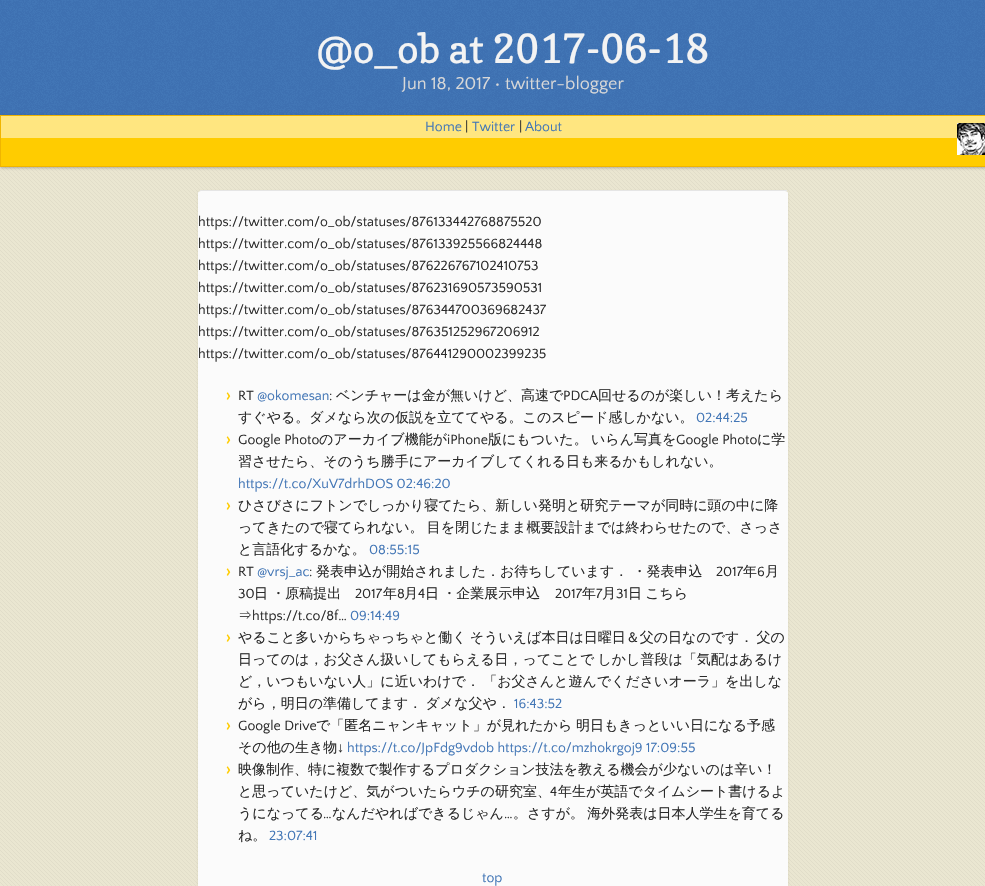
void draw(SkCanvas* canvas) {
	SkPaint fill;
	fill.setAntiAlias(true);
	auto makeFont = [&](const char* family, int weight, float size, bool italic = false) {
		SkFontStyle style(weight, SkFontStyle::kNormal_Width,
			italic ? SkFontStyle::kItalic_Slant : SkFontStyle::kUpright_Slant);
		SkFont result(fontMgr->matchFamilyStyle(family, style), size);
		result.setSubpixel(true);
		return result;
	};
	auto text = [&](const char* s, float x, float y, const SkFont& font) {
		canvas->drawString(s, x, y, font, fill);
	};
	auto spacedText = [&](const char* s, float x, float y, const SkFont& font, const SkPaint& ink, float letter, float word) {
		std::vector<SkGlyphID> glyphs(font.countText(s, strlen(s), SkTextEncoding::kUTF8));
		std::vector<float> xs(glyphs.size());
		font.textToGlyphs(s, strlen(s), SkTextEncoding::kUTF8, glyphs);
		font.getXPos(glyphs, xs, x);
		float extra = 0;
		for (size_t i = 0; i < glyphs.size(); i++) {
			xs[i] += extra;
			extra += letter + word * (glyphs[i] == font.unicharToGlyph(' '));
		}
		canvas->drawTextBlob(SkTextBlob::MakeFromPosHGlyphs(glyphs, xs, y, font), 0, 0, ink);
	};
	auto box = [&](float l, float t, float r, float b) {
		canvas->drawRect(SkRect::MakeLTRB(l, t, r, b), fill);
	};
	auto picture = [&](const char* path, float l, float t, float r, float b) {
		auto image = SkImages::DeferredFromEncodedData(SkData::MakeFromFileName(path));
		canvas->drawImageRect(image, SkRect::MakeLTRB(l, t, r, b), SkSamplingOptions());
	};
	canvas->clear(0xFFFFFFFF);
	picture("image0.png", 0, 167, 985, 886);
	fill.setColor(0x17000000);
	fill.setMaskFilter(SkMaskFilter::MakeBlur(kNormal_SkBlurStyle, 1));
	canvas->drawRoundRect(SkRect::MakeLTRB(198, 191, 788, 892), 3, 3, fill);
	fill.setMaskFilter(nullptr);
	fill.setColor(0xFFFBFBFB);
	canvas->drawPath(SkPathBuilder().moveTo(201, 191).lineTo(785, 191).cubicTo(787, 191, 788, 192, 788, 193).lineTo(788, 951).cubicTo(788, 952, 787, 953, 785, 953).lineTo(201, 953).cubicTo(199, 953, 198, 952, 198, 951).lineTo(198, 193).cubicTo(198, 192, 199, 191, 201, 191).close().detach(), fill);
	fill.setColor(0xFFE5E5E5);
	box(200, 190, 787, 191);
	picture("image1.png", 0, 0, 985, 115);
	picture("image2.png", 226, 392, 231, 400);
	picture("image2.png", 226, 436, 231, 444);
	picture("image2.png", 226, 502, 231, 510);
	picture("image2.png", 226, 568, 231, 576);
	picture("image2.png", 226, 634, 231, 642);
	picture("image2.png", 226, 722, 231, 730);
	picture("image2.png", 226, 766, 231, 774);
	fill.setColor(0x40000000);
	fill.setMaskFilter(SkMaskFilter::MakeBlur(kNormal_SkBlurStyle, 1.5f));
	canvas->drawRoundRect(SkRect::MakeLTRB(0, 116, 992, 168), 2, 2, fill);
	fill.setMaskFilter(nullptr);
	fill.setColor(0xFFFFCC00);
	box(1, 138, 985, 166);
	fill.setStyle(SkPaint::kStroke_Style);
	fill.setStrokeWidth(1);
	fill.setColor(0xFFF0B500);
	canvas->drawRect(SkRect::MakeLTRB(0.5f, 115.5f, 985.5f, 166.5f), fill);
	fill.setStyle(SkPaint::kFill_Style);
	fill.setColor(0xFFFFE680);
	box(1, 116, 985, 138);
	picture("image3.png", 957, 123, 985, 155);
	auto font1 = makeFont("Copse", 400, 40);
	fill.setColor(0xFFF3F3F3);
	text("@o_ob at 2017-06-18", 317, 63, font1);
	auto font2 = makeFont("Quattrocento Sans", 400, 18);
	fill.setColor(0xFFD8D8D8);
	text("Jun 18, 2017 • twitter-blogger", 402, 89, font2);
	auto font3 = makeFont("Quattrocento Sans", 400, 14);
	fill.setColor(0xFF2B2B2B);
	text("https://twitter.com/o_ob/statuses/876133442768875520", 198, 226, font3);
	text("https://twitter.com/o_ob/statuses/876133925566824448", 198, 248, font3);
	text("https://twitter.com/o_ob/statuses/876226767102410753", 198, 270, font3);
	text("https://twitter.com/o_ob/statuses/876231690573590531", 198, 292, font3);
	text("https://twitter.com/o_ob/statuses/876344700369682437", 198, 314, font3);
	text("https://twitter.com/o_ob/statuses/876351252967206912", 198, 336, font3);
	text("https://twitter.com/o_ob/statuses/876441290002399235", 198, 358, font3);
	text("RT", 238, 400, font3);
	fill.setColor(0xFF4276B6);
	text("@okomesan", 257, 400, font3);
	fill.setColor(0xFF2B2B2B);
	text(":", 329, 400, font3);
	auto font4 = makeFont("WenQuanYi Zen Hei", 500, 14);
	text("ベンチャーは金が無いけど、高速で", 336, 400, font4);
	text("PDCA", 563, 400, font3);
	text("回せるのが楽しい！考えたら", 598, 400, font4);
	text("すぐやる。ダメなら次の仮説を立ててやる。このスピード感しかない。", 238, 422, font4);
	fill.setColor(0xFF4276B6);
	text("02:44:25", 696, 422, font3);
	fill.setColor(0xFF2B2B2B);
	text("Google Photo", 238, 444, font3);
	text("のアーカイブ機能が", 319, 444, font4);
	text("iPhone", 447, 444, font3);
	text("版にもついた。", 488, 444, font4);
	text("いらん写真を", 591, 444, font4);
	text("Google Photo", 676, 444, font3);
	text("に学", 757, 444, font4);
	text("習させたら、そのうち勝手にアーカイブしてくれる日も来るかもしれない。", 238, 466, font4);
	fill.setColor(0xFF4276B6);
	text("https://t.co/XuV7drhDOS 02:46:20", 238, 488, font3);
	fill.setColor(0xFF2B2B2B);
	text("ひさびさにフトンでしっかり寝てたら、新しい発明と研究テーマが同時に頭の中に降", 238, 510, font4);
	spacedText("ってきたので寝てられない。 目を閉じたまま概要設計までは終わらせたので、さっさ", 238, 532, font4, fill, 0, -1);
	text("と言語化するかな。", 238, 554, font4);
	fill.setColor(0xFF4276B6);
	text("08:55:15", 369, 554, font3);
	fill.setColor(0xFF2B2B2B);
	text("RT", 238, 576, font3);
	fill.setColor(0xFF4276B6);
	text("@vrsj_ac", 257, 576, font3);
	fill.setColor(0xFF2B2B2B);
	text(":", 309, 576, font3);
	text("発表申込が開始されました．お待ちしています． ・発表申込", 316, 576, font4);
	text("2017", 716, 576, font3);
	text("年", 743, 576, font4);
	text("6", 757, 576, font3);
	text("月", 765, 576, font4);
	text("30", 238, 598, font3);
	spacedText("日 ・原稿提出", 254, 598, font4, fill, 0, -1);
	text("2017", 355, 598, font3);
	text("年", 383, 598, font4);
	text("8", 397, 598, font3);
	text("月", 404, 598, font4);
	text("4", 418, 598, font3);
	spacedText("日 ・企業展示申込", 425, 598, font4, fill, 0, -1);
	text("2017", 555, 598, font3);
	text("年", 582, 598, font4);
	text("7", 596, 598, font3);
	text("月", 602, 598, font4);
	text("31", 616, 598, font3);
	spacedText("日 こちら", 628, 598, font4, fill, 0, -1);
	text("⇒", 238, 620, font4);
	text("https://t.co/8f…", 252, 620, font3);
	fill.setColor(0xFF4276B6);
	text("09:14:49", 350, 620, font3);
	fill.setColor(0xFF2B2B2B);
	spacedText("やること多いからちゃっちゃと働く そういえば本日は日曜日＆父の日なのです． 父の", 238, 642, font4, fill, 0, -1);
	spacedText("日ってのは，お父さん扱いしてもらえる日，ってことで しかし普段は「気配はあるけ", 238, 664, font4, fill, 0, -1);
	spacedText("ど，いつもいない人」に近いわけで． 「お父さんと遊んでくださいオーラ」を出しな", 238, 686, font4, fill, 0, -1);
	spacedText("がら，明日の準備してます． ダメな父や．", 238, 708, font4, fill, 0, -1);
	fill.setColor(0xFF4276B6);
	text("16:43:52", 514, 708, font3);
	fill.setColor(0xFF2B2B2B);
	text("Google Drive", 238, 730, font3);
	text("で「匿名ニャンキャット」が見れたから", 316, 730, font4);
	text("明日もきっといい日になる予感", 576, 730, font4);
	text("その他の生き物", 238, 752, font4);
	auto font5 = makeFont("Liberation Sans", 400, 14);
	text("↓", 337, 752, font5);
	fill.setColor(0xFF4276B6);
	text("https://t.co/JpFdg9vdob https://t.co/mzhokrgoj9 17:09:55", 347, 752, font3);
	fill.setColor(0xFF2B2B2B);
	text("映像制作、特に複数で製作するプロダクション技法を教える機会が少ないのは辛い！", 238, 774, font4);
	text("と思っていたけど、気がついたらウチの研究室、", 238, 796, font4);
	text("4", 550, 796, font3);
	text("年生が英語でタイムシート書けるよ", 558, 796, font4);
	text("うになってる", 238, 818, font4);
	text("…", 323, 818, font3);
	text("なんだやればできるじゃん", 332, 818, font4);
	text("…", 504, 818, font3);
	spacedText("。さすが。 海外発表は日本人学生を育てる", 513, 818, font4, fill, 0, -1);
	text("ね。", 238, 840, font4);
	fill.setColor(0xFF4276B6);
	text("23:07:41", 269, 840, font3);
	text("top", 482, 882, font3);
	text("Home", 425, 131, font3);
	fill.setColor(0xFF2B2B2B);
	text("|", 465, 131, font3);
	fill.setColor(0xFF4276B6);
	text("Twitter", 472, 131, font3);
	fill.setColor(0xFF2B2B2B);
	text("|", 519, 131, font3);
	fill.setColor(0xFF4276B6);
	text("About", 525, 131, font3);
}
